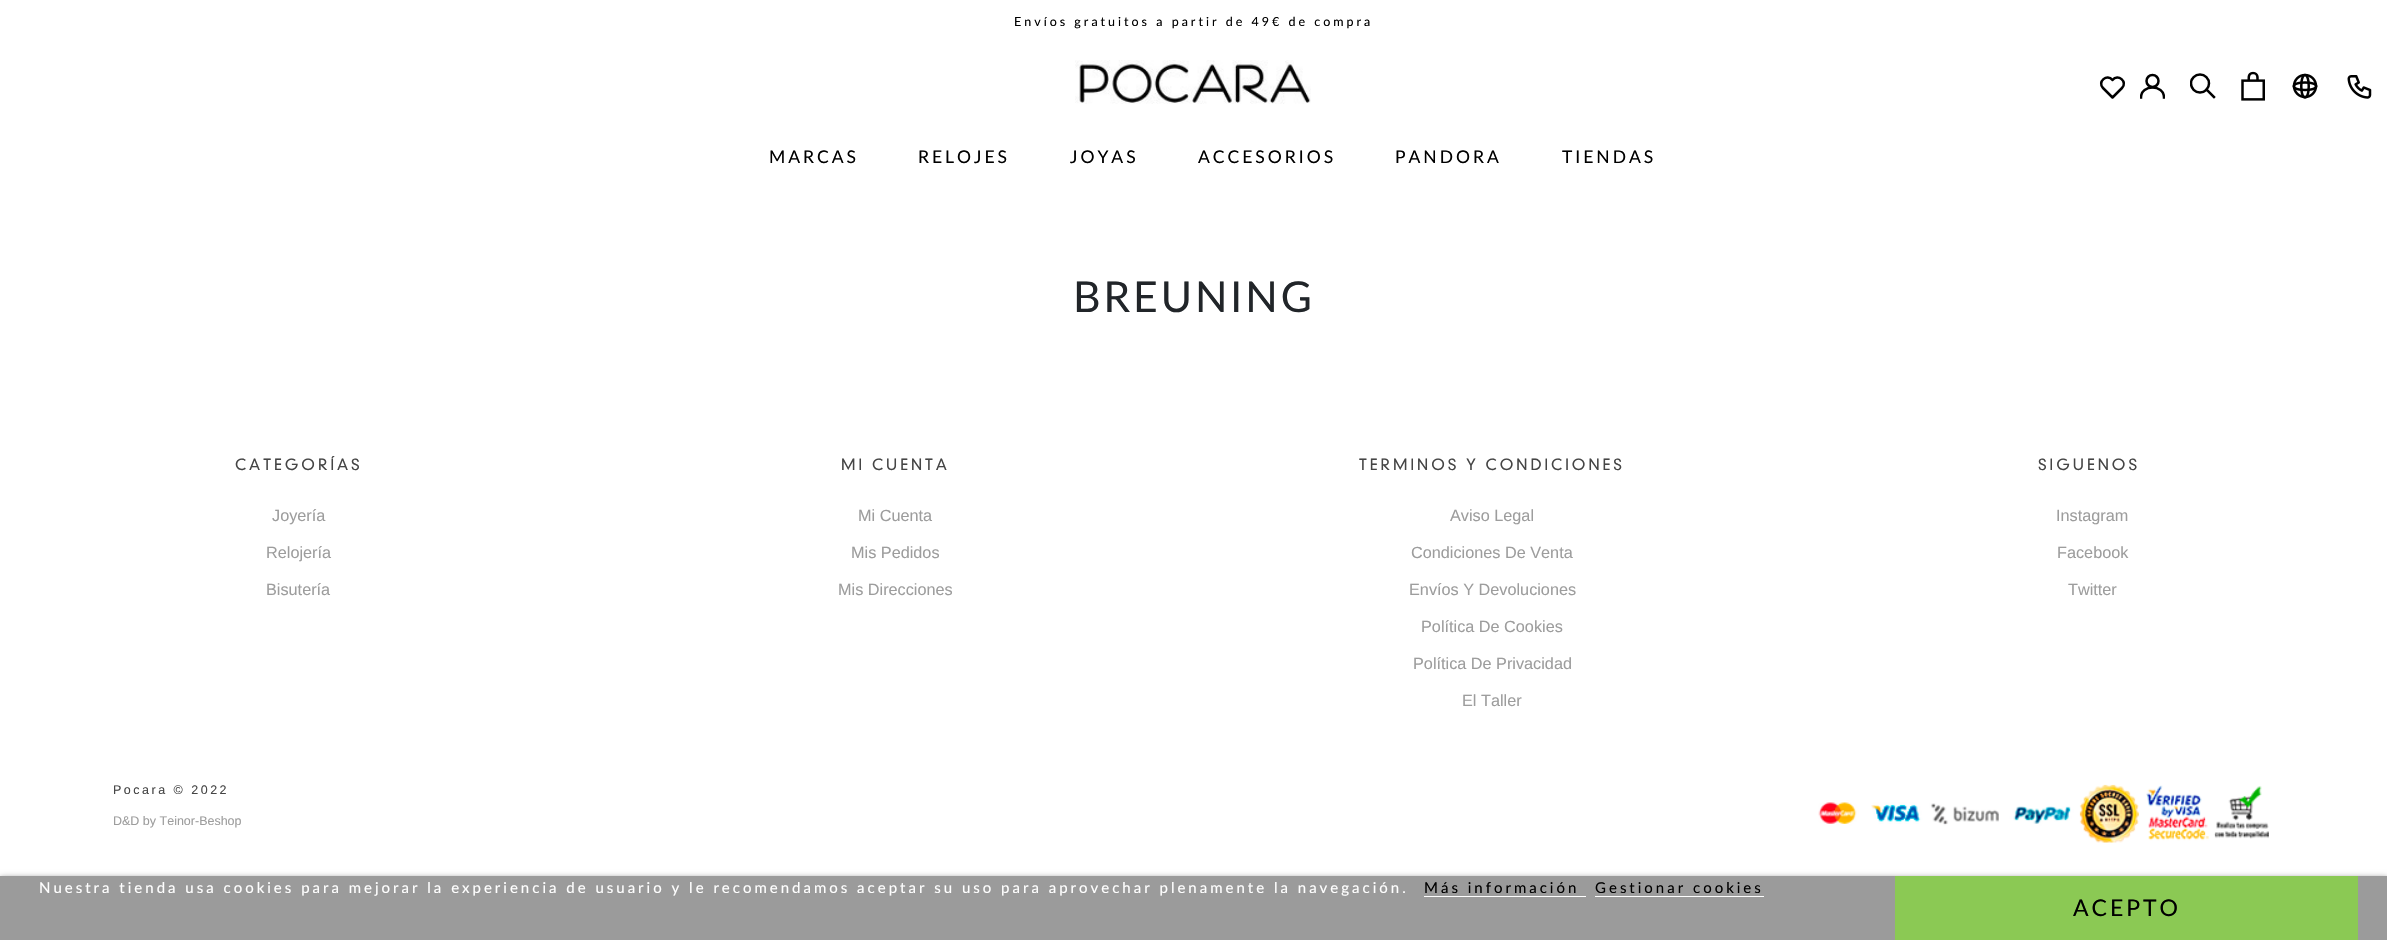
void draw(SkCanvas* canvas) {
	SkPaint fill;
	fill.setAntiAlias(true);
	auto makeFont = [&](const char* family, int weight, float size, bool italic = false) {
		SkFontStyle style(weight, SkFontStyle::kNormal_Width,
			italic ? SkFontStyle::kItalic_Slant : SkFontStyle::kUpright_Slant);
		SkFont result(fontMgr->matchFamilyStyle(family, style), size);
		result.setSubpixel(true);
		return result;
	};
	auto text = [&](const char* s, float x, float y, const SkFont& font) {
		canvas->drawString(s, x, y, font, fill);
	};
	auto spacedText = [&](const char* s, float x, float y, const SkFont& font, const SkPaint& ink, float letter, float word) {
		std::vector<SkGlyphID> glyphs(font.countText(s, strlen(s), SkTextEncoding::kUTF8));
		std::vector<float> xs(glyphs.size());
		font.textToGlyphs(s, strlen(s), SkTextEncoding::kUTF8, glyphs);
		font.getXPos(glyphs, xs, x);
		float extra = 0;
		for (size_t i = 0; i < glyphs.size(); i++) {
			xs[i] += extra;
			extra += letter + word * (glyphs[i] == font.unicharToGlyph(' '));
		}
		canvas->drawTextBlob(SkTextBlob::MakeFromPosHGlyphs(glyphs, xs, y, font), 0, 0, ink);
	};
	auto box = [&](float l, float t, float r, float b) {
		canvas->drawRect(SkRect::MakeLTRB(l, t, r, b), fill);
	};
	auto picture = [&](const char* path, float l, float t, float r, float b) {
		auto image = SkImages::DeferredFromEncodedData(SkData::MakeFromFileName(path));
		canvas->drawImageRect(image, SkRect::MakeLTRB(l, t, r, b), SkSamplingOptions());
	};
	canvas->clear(0xFFFFFFFF);
	fill.setStyle(SkPaint::kStroke_Style);
	fill.setStrokeWidth(2.5f);
	fill.setStrokeCap(SkPaint::kRound_Cap);
	fill.setStrokeJoin(SkPaint::kRound_Join);
	fill.setColor(0xFF000000);
	canvas->drawPath(SkPathBuilder().moveTo(2122, 88).lineTo(2112.5f, 97.5f).lineTo(2103, 88).moveTo(2103, 88).cubicTo(2097, 82, 2107, 73, 2112.5f, 80).cubicTo(2118, 73, 2128, 82, 2122, 88).detach(), fill);
	canvas->save();
	canvas->clipRect(SkRect::MakeLTRB(2140, 71, 2165, 101));
	fill.setStrokeCap(SkPaint::kSquare_Cap);
	fill.setStrokeJoin(SkPaint::kMiter_Join);
	canvas->drawPath(SkPathBuilder().moveTo(2141, 97.5f).cubicTo(2141, 84, 2164, 84, 2164, 97.5f).detach(), fill);
	canvas->restore();
	fill.setStrokeCap(SkPaint::kButt_Cap);
	canvas->drawCircle(2152.5f, 81, 6, fill);
	fill.setStrokeCap(SkPaint::kSquare_Cap);
	canvas->drawPath(SkPathBuilder().moveTo(2214, 97).lineTo(2206.5f, 89.5f).detach(), fill);
	canvas->save();
	canvas->clipRect(SkRect::MakeLTRB(2190, 71, 2216, 101));
	fill.setStrokeCap(SkPaint::kButt_Cap);
	canvas->drawCircle(2200, 83.5f, 9, fill);
	canvas->restore();
	picture("image0.png", 2241, 71, 2265, 101);
	picture("image1.png", 2292, 73, 2318, 99);
	picture("image2.png", 2347, 75, 2372, 99);
	picture("image3.png", 1075, 60, 1311, 104);
	canvas->save();
	canvas->clipPath(SkPathBuilder(SkPathFillType::kEvenOdd).moveTo(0, 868).lineTo(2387, 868).lineTo(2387, 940).lineTo(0, 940).close().moveTo(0, 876).lineTo(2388, 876).lineTo(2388, 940).lineTo(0, 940).close().detach(), true);
	fill.setStyle(SkPaint::kFill_Style);
	fill.setColor(0xFF707070);
	fill.setMaskFilter(SkMaskFilter::MakeBlur(kNormal_SkBlurStyle, 3));
	canvas->drawRect(SkRect::MakeLTRB(0, 878, 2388, 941), fill);
	fill.setMaskFilter(nullptr);
	canvas->restore();
	fill.setColor(0xB3707070);
	box(0, 876, 2387, 940);
	fill.setColor(0xFFFFFFFF);
	box(1424, 896, 1586, 897);
	box(1595, 896, 1764, 897);
	fill.setColor(0xFF8BC954);
	box(1895, 876, 2358, 940);
	picture("image4.png", 1818, 784, 2269, 843);
	auto font1 = makeFont("Lato", 400, 12.5f);
	fill.setColor(0xFF000000);
	spacedText("Envíos gratuitos a partir de 49€ de compra", 1014, 26, font1, fill, 3, 0);
	auto font2 = makeFont("Lato", 400, 17.5f);
	spacedText("MARCAS", 769, 163, font2, fill, 3, 0);
	spacedText("RELOJES", 918, 163, font2, fill, 3, 0);
	spacedText("JOYAS", 1070, 163, font2, fill, 3, 0);
	spacedText("ACCESORIOS", 1198, 163, font2, fill, 3, 0);
	spacedText("PANDORA", 1395, 163, font2, fill, 3, 0);
	spacedText("TIENDAS", 1562, 163, font2, fill, 3, 0);
	auto font3 = makeFont("Lato", 400, 15);
	fill.setColor(0xFFFFFFFF);
	spacedText("Nuestra tienda usa cookies para mejorar la experiencia de usuario y le recomendamos aceptar su uso para aprovechar plenamente la navegación.", 39, 893, font3, fill, 3, 0);
	fill.setColor(0xFF000000);
	spacedText("Más información", 1424, 893, font3, fill, 3, 0);
	spacedText("Gestionar cookies", 1595, 893, font3, fill, 3, 0);
	auto font4 = makeFont("Lato", 400, 23);
	spacedText("ACEPTO", 2073, 916, font4, fill, 3, 0);
	auto font5 = makeFont("Lato", 400, 42.5f);
	fill.setColor(0xFF212529);
	spacedText("BREUNING", 1073, 312, font5, fill, 3, 0);
	auto font6 = makeFont("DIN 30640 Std", 300, 15);
	fill.setColor(0xFF454545);
	spacedText("CATEGORÍAS", 235, 470, font6, fill, 3, 0);
	auto font7 = makeFont("Liberation Sans", 400, 16.25f);
	fill.setColor(0xFF9D9D9D);
	text("Joyería", 272, 521, font7);
	text("Relojería", 266, 558, font7);
	text("Bisutería", 266, 595, font7);
	fill.setColor(0xFF454545);
	spacedText("MI CUENTA", 841, 470, font6, fill, 3, 0);
	fill.setColor(0xFF9D9D9D);
	text("Mi Cuenta", 858, 521, font7);
	text("Mis Pedidos", 851, 558, font7);
	text("Mis Direcciones", 838, 595, font7);
	fill.setColor(0xFF454545);
	spacedText("TERMINOS Y CONDICIONES", 1359, 470, font6, fill, 3, 0);
	fill.setColor(0xFF9D9D9D);
	text("Aviso Legal", 1450, 521, font7);
	text("Condiciones De Venta", 1411, 558, font7);
	text("Envíos Y Devoluciones", 1409, 595, font7);
	text("Política De Cookies", 1421, 632, font7);
	text("Política De Privacidad", 1413, 669, font7);
	text("El Taller", 1462, 706, font7);
	fill.setColor(0xFF454545);
	spacedText("SIGUENOS", 2038, 470, font6, fill, 3, 0);
	fill.setColor(0xFF9D9D9D);
	text("Instagram", 2056, 521, font7);
	text("Facebook", 2057, 558, font7);
	text("Twitter", 2068, 595, font7);
	auto font8 = makeFont("Liberation Sans", 400, 12.5f);
	fill.setColor(0xFF454545);
	spacedText("Pocara © 2022", 113, 794, font8, fill, 2.5f, 0);
	fill.setColor(0xFF9D9D9D);
	text("D&D by Teinor-Beshop", 113, 825, font8);
}
